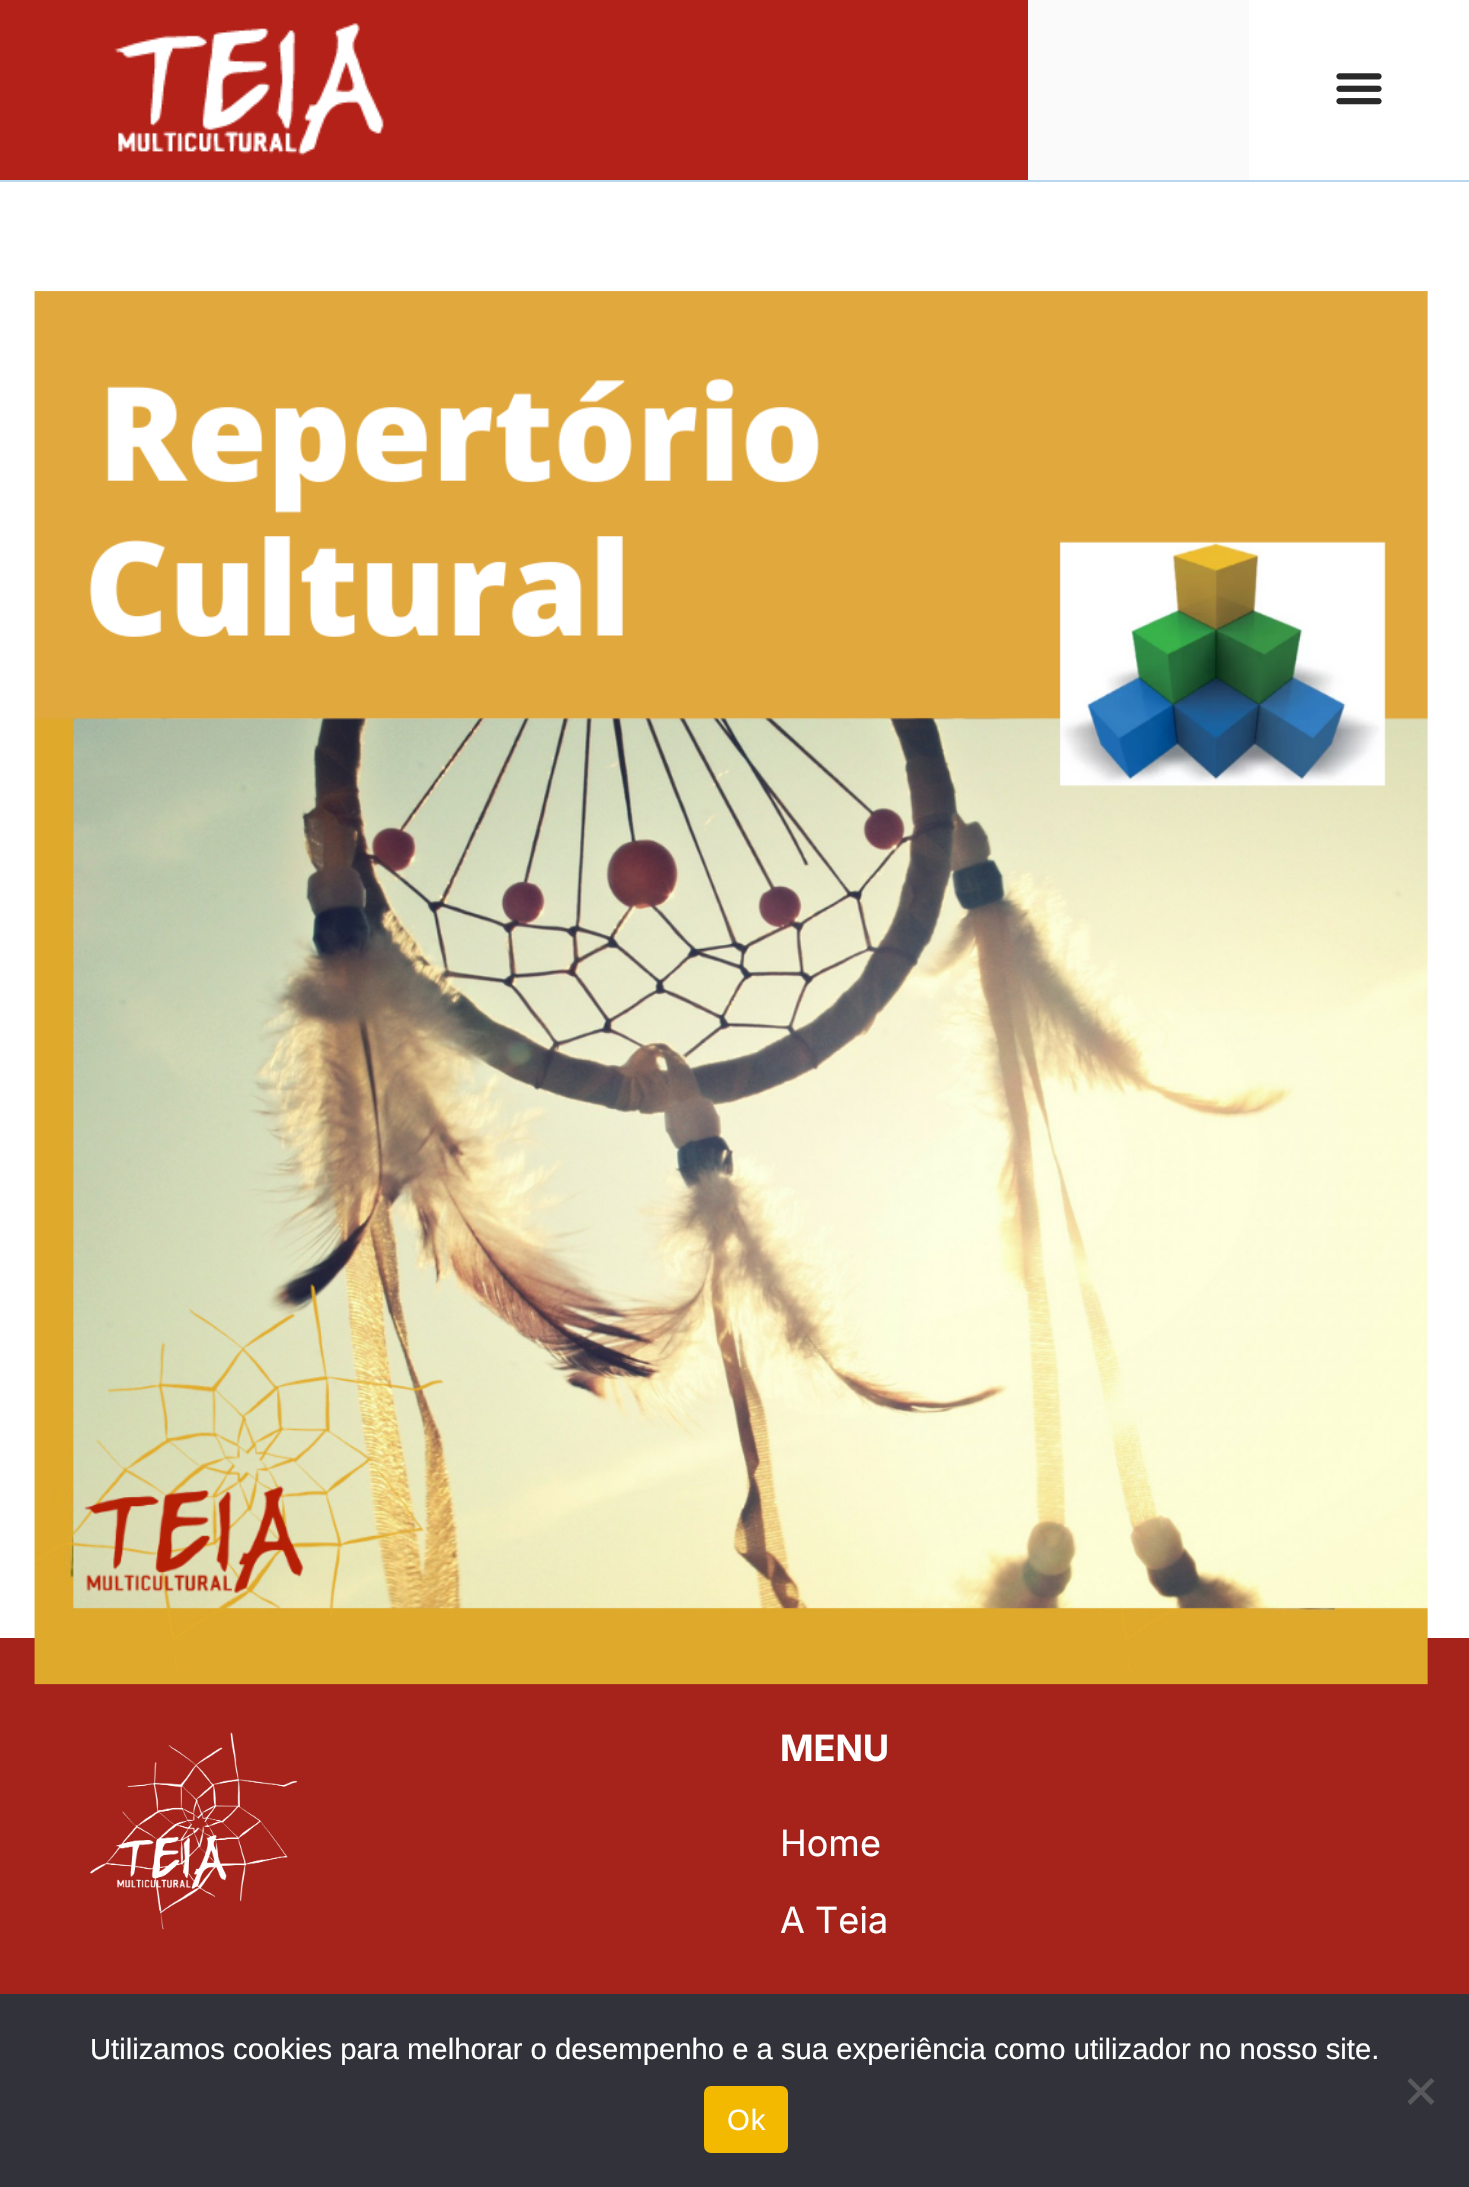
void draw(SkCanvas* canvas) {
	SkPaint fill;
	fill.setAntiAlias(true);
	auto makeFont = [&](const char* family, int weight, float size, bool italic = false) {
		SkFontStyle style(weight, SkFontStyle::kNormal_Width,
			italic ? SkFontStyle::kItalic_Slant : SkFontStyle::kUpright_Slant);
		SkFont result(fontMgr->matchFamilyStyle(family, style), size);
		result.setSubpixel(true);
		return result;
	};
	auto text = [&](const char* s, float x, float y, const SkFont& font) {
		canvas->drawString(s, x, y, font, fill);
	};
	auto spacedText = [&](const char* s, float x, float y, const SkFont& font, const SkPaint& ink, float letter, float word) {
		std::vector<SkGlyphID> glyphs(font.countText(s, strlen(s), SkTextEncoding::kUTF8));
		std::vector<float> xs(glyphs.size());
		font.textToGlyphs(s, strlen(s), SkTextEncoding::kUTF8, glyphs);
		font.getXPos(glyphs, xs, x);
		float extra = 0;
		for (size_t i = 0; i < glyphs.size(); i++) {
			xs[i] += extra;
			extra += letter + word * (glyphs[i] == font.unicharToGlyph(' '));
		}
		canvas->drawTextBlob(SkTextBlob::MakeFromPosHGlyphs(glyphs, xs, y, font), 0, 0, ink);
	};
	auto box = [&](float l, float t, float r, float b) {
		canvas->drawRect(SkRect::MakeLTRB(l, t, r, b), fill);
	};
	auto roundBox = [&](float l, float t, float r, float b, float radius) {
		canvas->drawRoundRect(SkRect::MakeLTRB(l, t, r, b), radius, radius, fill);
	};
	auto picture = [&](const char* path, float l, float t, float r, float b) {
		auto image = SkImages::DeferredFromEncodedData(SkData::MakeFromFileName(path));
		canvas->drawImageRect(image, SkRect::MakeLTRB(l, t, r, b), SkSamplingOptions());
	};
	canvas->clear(0xFFFFFFFF);
	fill.setColor(0xFFB42118);
	box(0, 0, 1028, 180);
	picture("image0.png", 114, 23, 384, 156);
	fill.setColor(0xFFFAFAFA);
	box(1028, 0, 1249, 180);
	picture("image1.png", 1336, 73, 1382, 105);
	fill.setColor(0xFFB7D8EF);
	box(0, 180, 1469, 182);
	fill.setColor(0xFFA5231B);
	box(0, 1638, 1469, 1994);
	picture("image2.png", 34, 291, 1428, 1685);
	picture("image3.png", 90, 1732, 298, 1930);
	fill.setColor(0xFF32323A);
	box(0, 1994, 1469, 2187);
	fill.setColor(0xFF59595D);
	canvas->drawPath(SkPathBuilder().moveTo(1431, 2078).lineTo(1434.5f, 2081).lineTo(1410.5f, 2105).lineTo(1407.5f, 2101.5f).close().detach(), fill);
	canvas->drawPath(SkPathBuilder().moveTo(1407.5f, 2081).lineTo(1410.5f, 2078).lineTo(1434.5f, 2101.5f).lineTo(1431, 2105).close().detach(), fill);
	fill.setColor(0xFFF2B900);
	roundBox(704, 2086, 788, 2153, 7);
	auto font1 = makeFont("Inter", 700, 36);
	fill.setColor(0xFFFFFFFF);
	text("MENU", 780, 1761, font1);
	auto font2 = makeFont("Inter", 400, 36);
	text("Home", 780, 1856, font2);
	text("A Teia", 780, 1933, font2);
	auto font3 = makeFont("Liberation Sans", 400, 29.25f);
	text("Utilizamos cookies para melhorar o desempenho e a sua experiência como utilizador no nosso site.", 90, 2059, font3);
	spacedText("Ok", 727, 2130, font3, fill, 1, 0);
}
